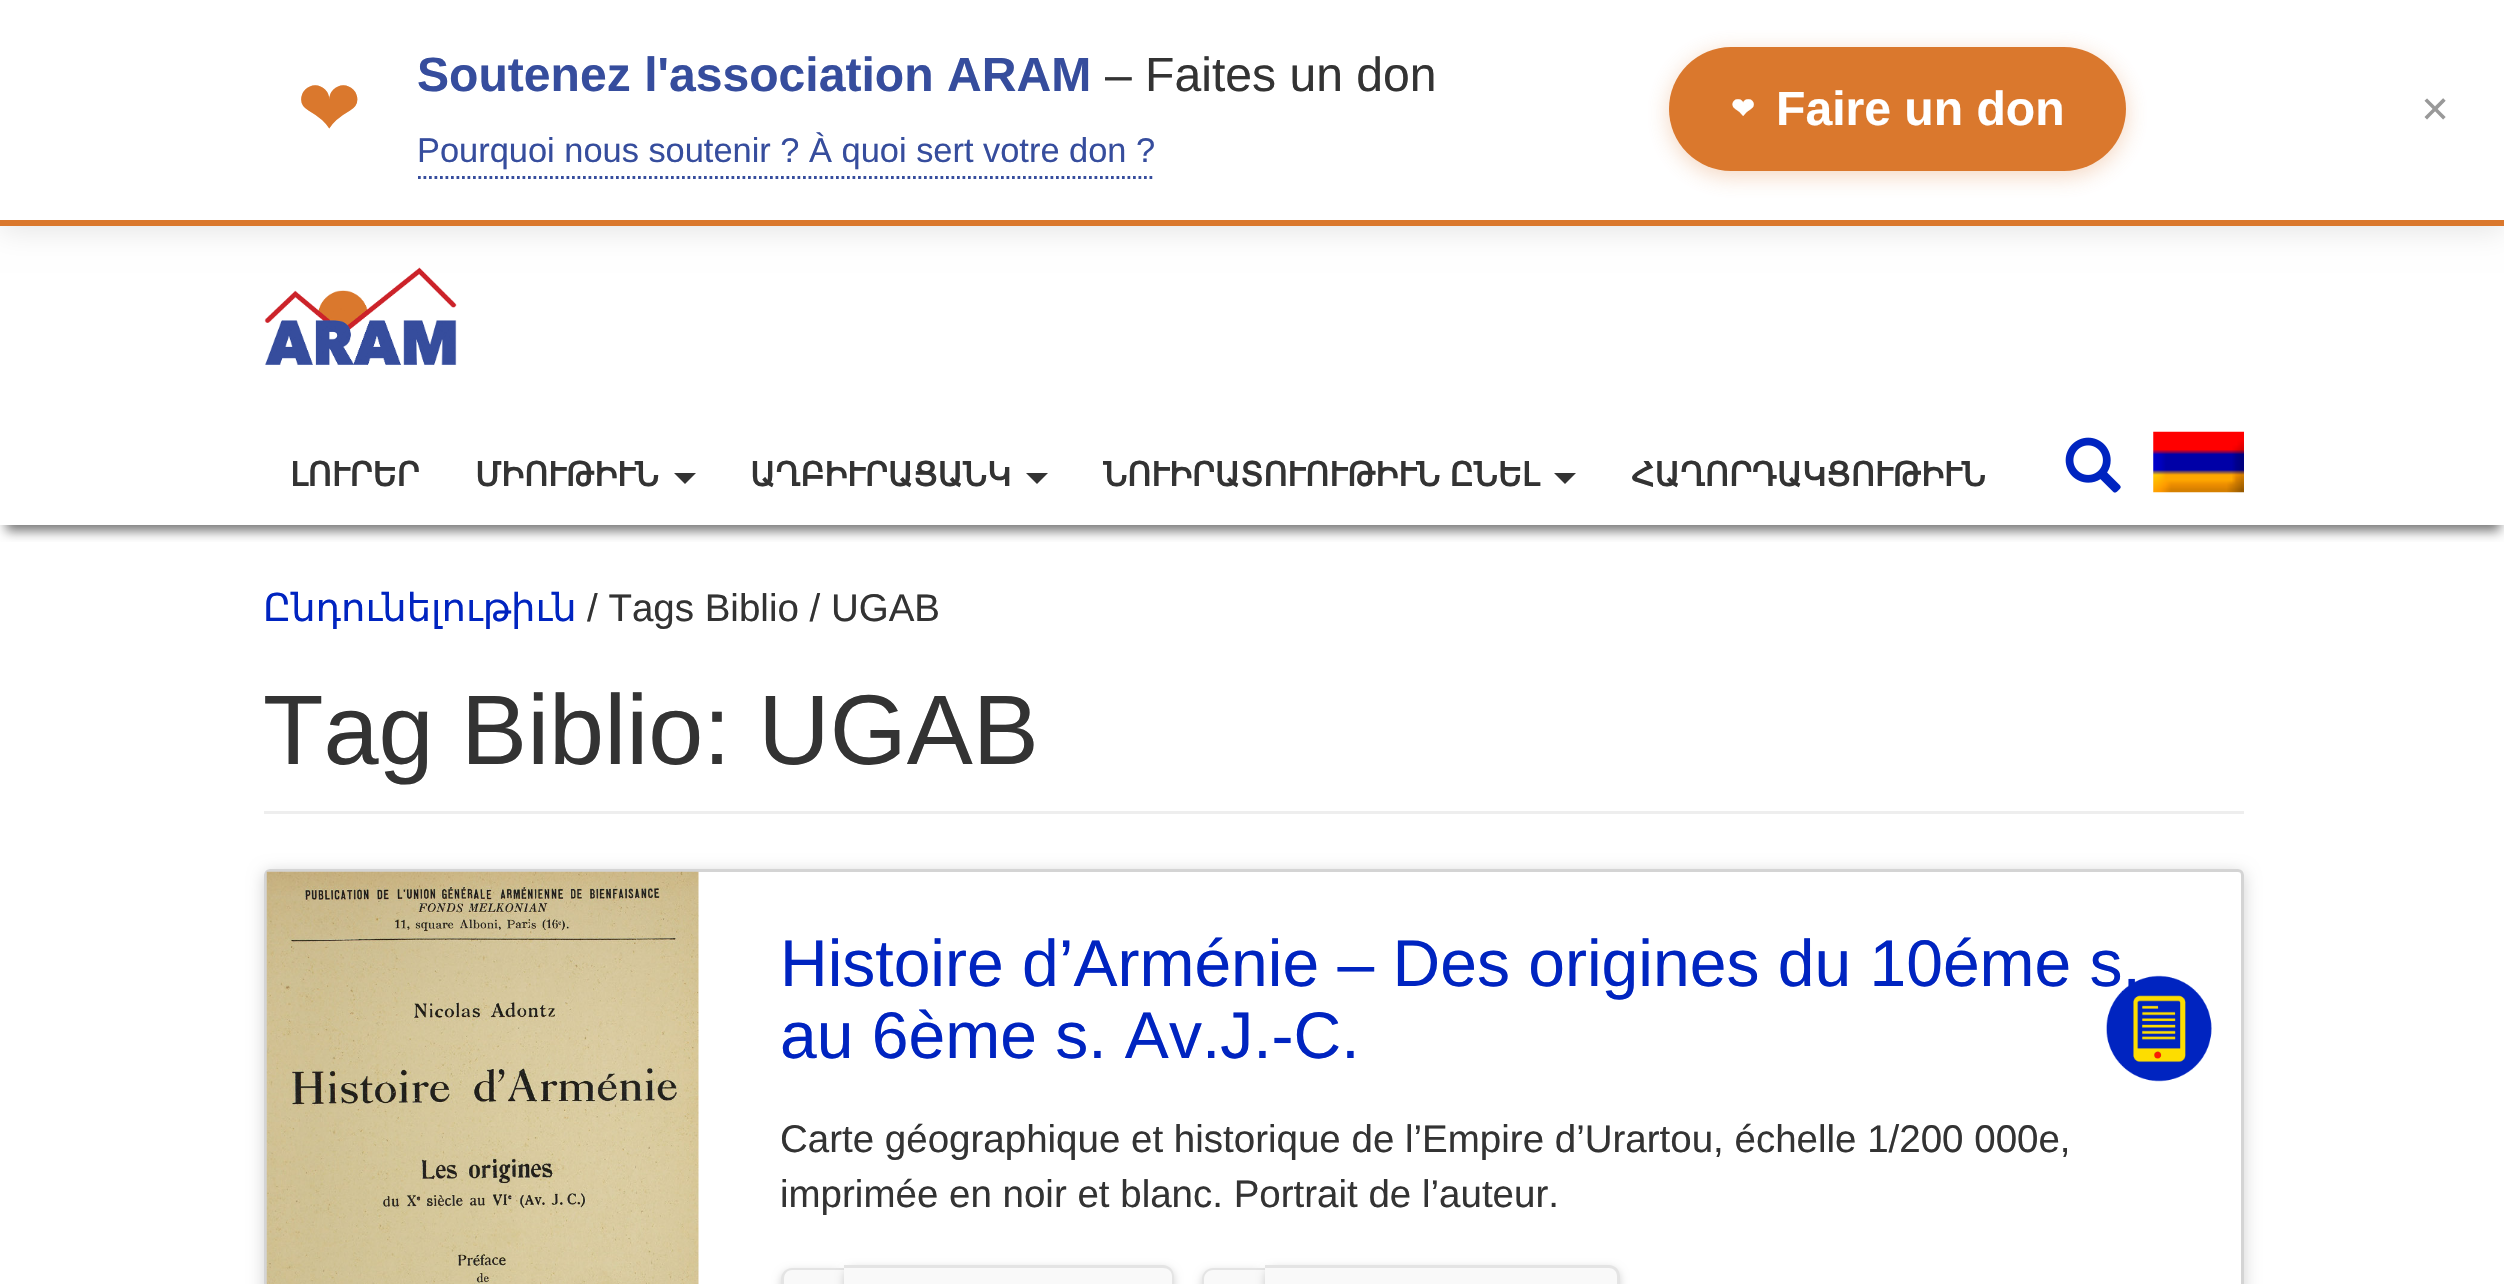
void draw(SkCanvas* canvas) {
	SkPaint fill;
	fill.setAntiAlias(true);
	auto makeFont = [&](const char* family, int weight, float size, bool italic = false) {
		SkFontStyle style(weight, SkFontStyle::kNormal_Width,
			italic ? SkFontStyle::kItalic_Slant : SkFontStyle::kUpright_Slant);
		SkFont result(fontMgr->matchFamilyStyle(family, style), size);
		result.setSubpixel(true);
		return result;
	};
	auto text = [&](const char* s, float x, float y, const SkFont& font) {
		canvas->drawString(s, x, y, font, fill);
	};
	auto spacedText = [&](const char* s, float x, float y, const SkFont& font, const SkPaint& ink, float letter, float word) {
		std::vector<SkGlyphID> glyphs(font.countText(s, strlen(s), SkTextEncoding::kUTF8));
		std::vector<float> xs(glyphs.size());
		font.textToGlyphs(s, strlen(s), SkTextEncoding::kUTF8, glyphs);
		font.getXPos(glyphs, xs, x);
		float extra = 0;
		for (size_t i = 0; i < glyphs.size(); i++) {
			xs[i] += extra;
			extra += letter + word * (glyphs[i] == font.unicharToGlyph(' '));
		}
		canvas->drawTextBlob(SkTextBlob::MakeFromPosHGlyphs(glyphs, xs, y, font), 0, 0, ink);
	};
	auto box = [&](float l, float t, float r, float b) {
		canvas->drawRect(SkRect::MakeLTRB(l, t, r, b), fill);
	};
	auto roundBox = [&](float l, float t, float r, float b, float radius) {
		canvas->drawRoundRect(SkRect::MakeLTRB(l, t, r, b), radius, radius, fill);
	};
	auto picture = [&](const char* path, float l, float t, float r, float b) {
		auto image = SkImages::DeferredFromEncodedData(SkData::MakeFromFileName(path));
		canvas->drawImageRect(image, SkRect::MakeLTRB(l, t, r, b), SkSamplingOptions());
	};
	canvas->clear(0xFFFFFFFF);
	canvas->save();
	canvas->clipRect(SkRect::MakeLTRB(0, 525, 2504, 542));
	fill.setColor(0xFF777777);
	fill.setMaskFilter(SkMaskFilter::MakeBlur(kNormal_SkBlurStyle, 5.5f));
	canvas->drawRect(SkRect::MakeLTRB(6, 242, 2500, 531), fill);
	fill.setMaskFilter(nullptr);
	canvas->restore();
	picture("image0.png", 264, 267, 457, 365);
	fill.setColor(0x1A000000);
	fill.setMaskFilter(SkMaskFilter::MakeBlur(kNormal_SkBlurStyle, 14));
	canvas->drawRect(SkRect::MakeLTRB(0, 6, 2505, 231), fill);
	fill.setMaskFilter(nullptr);
	fill.setColor(0xFFFFFFFF);
	box(0, 0, 2504, 220);
	fill.setColor(0xFFDA782D);
	box(0, 220, 2504, 226);
	fill.setStyle(SkPaint::kStroke_Style);
	fill.setStrokeWidth(2.8f);
	fill.setColor(0xFF364D9D);
	fill.setPathEffect(SkDashPathEffect::Make({{2.75f, 2.75f}}, 0));
	canvas->drawPath(SkPathBuilder().moveTo(418, 177.5f).lineTo(1155, 177.5f).detach(), fill);
	fill.setPathEffect(nullptr);
	fill.setStyle(SkPaint::kFill_Style);
	fill.setColor(0x4DDA782D);
	fill.setMaskFilter(SkMaskFilter::MakeBlur(kNormal_SkBlurStyle, 11));
	canvas->drawRoundRect(SkRect::MakeLTRB(1669, 52, 2126, 176), 62, 62, fill);
	fill.setMaskFilter(nullptr);
	fill.setColor(0xFFDA782D);
	roundBox(1669, 47, 2126, 171, 62);
	fill.setColor(0xFF333333);
	canvas->drawPath(SkPathBuilder().moveTo(674, 473).lineTo(696, 473).lineTo(685, 484).close().detach(), fill);
	canvas->drawPath(SkPathBuilder().moveTo(1026, 473).lineTo(1048, 473).lineTo(1037, 484).close().detach(), fill);
	canvas->drawPath(SkPathBuilder().moveTo(1554, 473).lineTo(1576, 473).lineTo(1565, 484).close().detach(), fill);
	picture("image1.png", 2065, 437, 2121, 493);
	picture("image2.png", 2153, 431, 2244, 493);
	fill.setColor(0xFFEEEEEE);
	box(264, 811, 2244, 814);
	canvas->save();
	canvas->clipPath(SkPathBuilder(SkPathFillType::kEvenOdd).moveTo(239, 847).lineTo(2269, 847).lineTo(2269, 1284).lineTo(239, 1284).close().moveTo(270, 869).lineTo(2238, 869).cubicTo(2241.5f, 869, 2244, 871.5f, 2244, 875).lineTo(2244, 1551).cubicTo(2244, 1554.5f, 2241.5f, 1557, 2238, 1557).lineTo(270, 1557).cubicTo(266.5f, 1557, 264, 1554.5f, 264, 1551).lineTo(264, 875).cubicTo(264, 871.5f, 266.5f, 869, 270, 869).close().detach(), true);
	fill.setColor(0x2E000000);
	fill.setMaskFilter(SkMaskFilter::MakeBlur(kNormal_SkBlurStyle, 8));
	canvas->drawRoundRect(SkRect::MakeLTRB(264, 872, 2244, 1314), 6, 6, fill);
	fill.setMaskFilter(nullptr);
	canvas->restore();
	fill.setStyle(SkPaint::kStroke_Style);
	fill.setStrokeWidth(3);
	fill.setColor(0xFFD4D4D4);
	canvas->drawRoundRect(SkRect::MakeLTRB(265.5f, 870.5f, 2242.5f, 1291.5f), 4.5f, 4.5f, fill);
	picture("image3.png", 266, 871, 699, 1284);
	picture("image4.png", 2106, 975, 2212, 1082);
	fill.setStyle(SkPaint::kFill_Style);
	fill.setColor(0x2E000000);
	fill.setMaskFilter(SkMaskFilter::MakeBlur(kNormal_SkBlurStyle, 4));
	canvas->drawRoundRect(SkRect::MakeLTRB(781, 1271, 844, 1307), 11, 11, fill);
	fill.setMaskFilter(nullptr);
	fill.setColor(0xFFF9F9F9);
	canvas->drawPath(SkPathBuilder().moveTo(792, 1268).lineTo(844, 1268).lineTo(844, 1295).lineTo(792, 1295).cubicTo(786, 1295, 781, 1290, 781, 1284).lineTo(781, 1279).cubicTo(781, 1273, 786, 1268, 792, 1268).close().detach(), fill);
	fill.setColor(0xFFE4E4E4);
	canvas->drawPath(SkPathBuilder(SkPathFillType::kEvenOdd).moveTo(792, 1268).lineTo(844, 1268).lineTo(844, 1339).lineTo(792, 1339).cubicTo(786, 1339, 781, 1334, 781, 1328).lineTo(781, 1279).cubicTo(781, 1273, 786, 1268, 792, 1268).close().moveTo(792, 1270).lineTo(844, 1270).lineTo(844, 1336).lineTo(792, 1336).cubicTo(787, 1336, 784, 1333, 784, 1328).lineTo(784, 1279).cubicTo(784, 1274, 787, 1270, 792, 1270).close().detach(), fill);
	fill.setColor(0x2E000000);
	fill.setMaskFilter(SkMaskFilter::MakeBlur(kNormal_SkBlurStyle, 4));
	canvas->drawRoundRect(SkRect::MakeLTRB(844, 1268, 1174, 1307), 11, 11, fill);
	fill.setMaskFilter(nullptr);
	fill.setColor(0xFFF9F9F9);
	canvas->drawPath(SkPathBuilder().moveTo(844, 1265).lineTo(1163, 1265).cubicTo(1169, 1265, 1174, 1270, 1174, 1276).lineTo(1174, 1284).cubicTo(1174, 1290, 1169, 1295, 1163, 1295).lineTo(844, 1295).close().detach(), fill);
	fill.setColor(0xFFE4E4E4);
	canvas->drawPath(SkPathBuilder(SkPathFillType::kEvenOdd).moveTo(844, 1265).lineTo(1163, 1265).cubicTo(1169, 1265, 1174, 1270, 1174, 1276).lineTo(1174, 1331).cubicTo(1174, 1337, 1169, 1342, 1163, 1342).lineTo(844, 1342).close().moveTo(844, 1268).lineTo(1163, 1268).cubicTo(1168, 1268, 1172, 1271, 1172, 1276).lineTo(1172, 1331).cubicTo(1172, 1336, 1168, 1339, 1163, 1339).lineTo(844, 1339).close().detach(), fill);
	fill.setColor(0x2E000000);
	fill.setMaskFilter(SkMaskFilter::MakeBlur(kNormal_SkBlurStyle, 4));
	canvas->drawRoundRect(SkRect::MakeLTRB(1202, 1271, 1265, 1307), 11, 11, fill);
	fill.setMaskFilter(nullptr);
	fill.setColor(0xFFF9F9F9);
	canvas->drawPath(SkPathBuilder().moveTo(1213, 1268).lineTo(1265, 1268).lineTo(1265, 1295).lineTo(1213, 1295).cubicTo(1207, 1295, 1202, 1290, 1202, 1284).lineTo(1202, 1279).cubicTo(1202, 1273, 1207, 1268, 1213, 1268).close().detach(), fill);
	fill.setColor(0xFFE4E4E4);
	canvas->drawPath(SkPathBuilder(SkPathFillType::kEvenOdd).moveTo(1213, 1268).lineTo(1265, 1268).lineTo(1265, 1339).lineTo(1213, 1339).cubicTo(1207, 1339, 1202, 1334, 1202, 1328).lineTo(1202, 1279).cubicTo(1202, 1273, 1207, 1268, 1213, 1268).close().moveTo(1213, 1270).lineTo(1265, 1270).lineTo(1265, 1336).lineTo(1213, 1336).cubicTo(1208, 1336, 1204, 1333, 1204, 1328).lineTo(1204, 1279).cubicTo(1204, 1274, 1208, 1270, 1213, 1270).close().detach(), fill);
	fill.setColor(0x2E000000);
	fill.setMaskFilter(SkMaskFilter::MakeBlur(kNormal_SkBlurStyle, 4));
	canvas->drawRoundRect(SkRect::MakeLTRB(1265, 1268, 1620, 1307), 11, 11, fill);
	fill.setMaskFilter(nullptr);
	fill.setColor(0xFFF9F9F9);
	canvas->drawPath(SkPathBuilder().moveTo(1265, 1265).lineTo(1609, 1265).cubicTo(1615, 1265, 1620, 1270, 1620, 1276).lineTo(1620, 1284).cubicTo(1620, 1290, 1615, 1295, 1609, 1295).lineTo(1265, 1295).close().detach(), fill);
	fill.setColor(0xFFE4E4E4);
	canvas->drawPath(SkPathBuilder(SkPathFillType::kEvenOdd).moveTo(1265, 1265).lineTo(1609, 1265).cubicTo(1615, 1265, 1620, 1270, 1620, 1276).lineTo(1620, 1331).cubicTo(1620, 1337, 1615, 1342, 1609, 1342).lineTo(1265, 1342).close().moveTo(1265, 1268).lineTo(1609, 1268).cubicTo(1613, 1268, 1617, 1271, 1617, 1276).lineTo(1617, 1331).cubicTo(1617, 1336, 1613, 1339, 1609, 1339).lineTo(1265, 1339).close().detach(), fill);
	auto font1 = makeFont("DejaVu Sans", 400, 77);
	fill.setColor(0xFFDA782D);
	text("❤", 297, 135, font1);
	auto font2 = makeFont("Liberation Sans", 700, 48.1f);
	fill.setColor(0xFF364D9D);
	text("Soutenez l'association ARAM", 417, 91, font2);
	auto font3 = makeFont("Liberation Sans", 400, 48.1f);
	fill.setColor(0xFF333333);
	text("– Faites un don", 1105, 91, font3);
	auto font4 = makeFont("Liberation Sans", 400, 34.4f);
	fill.setColor(0xFF364D9D);
	text("Pourquoi nous soutenir ? À quoi sert votre don ?", 417, 162, font4);
	auto font5 = makeFont("DejaVu Sans", 700, 28);
	fill.setColor(0xFFFFFFFF);
	text("❤", 1731, 118, font5);
	text("Faire un don", 1776, 125, font2);
	auto font6 = makeFont("DejaVu Sans", 400, 36);
	fill.setColor(0xFF999999);
	text("✕", 2420, 122, font6);
	auto font7 = makeFont("DejaVu Sans", 700, 33);
	fill.setColor(0xFF333333);
	text("ԼՈՒՐԵՐ", 290, 486, font7);
	text("ՄԻՈՒԹԻՒՆ", 475, 486, font7);
	text("ԱՂԲԻՒՐԱՑԱՆԿ", 750, 486, font7);
	spacedText("ՆՈՒԻՐԱՏՈՒՈՒԹԻՒՆ ԸՆԵԼ", 1103, 486, font7, fill, 0, -1);
	text("ՀԱՂՈՐԴԱԿՑՈՒԹԻՒՆ", 1631, 486, font7);
	auto font8 = makeFont("DejaVu Sans", 400, 38.5f);
	fill.setColor(0xFF0024C0);
	text("Ընդունելութիւն", 263, 621, font8);
	auto font9 = makeFont("Liberation Sans", 400, 38.5f);
	fill.setColor(0xFF333333);
	text("/ Tags Biblio / UGAB", 587, 621, font9);
	auto font10 = makeFont("Liberation Sans", 400, 99);
	text("Tag Biblio: UGAB", 263, 764, font10);
	auto font11 = makeFont("Liberation Sans", 400, 66);
	fill.setColor(0xFF0024C0);
	text("Histoire d’Arménie – Des origines du 10éme s.", 780, 986, font11);
	text("au 6ème s. Av.J.-C.", 780, 1058, font11);
	fill.setColor(0xFF333333);
	text("Carte géographique et historique de l’Empire d’Urartou, échelle 1/200 000e,", 780, 1152, font9);
	text("imprimée en noir et blanc. Portrait de l’auteur.", 780, 1207, font9);
}
